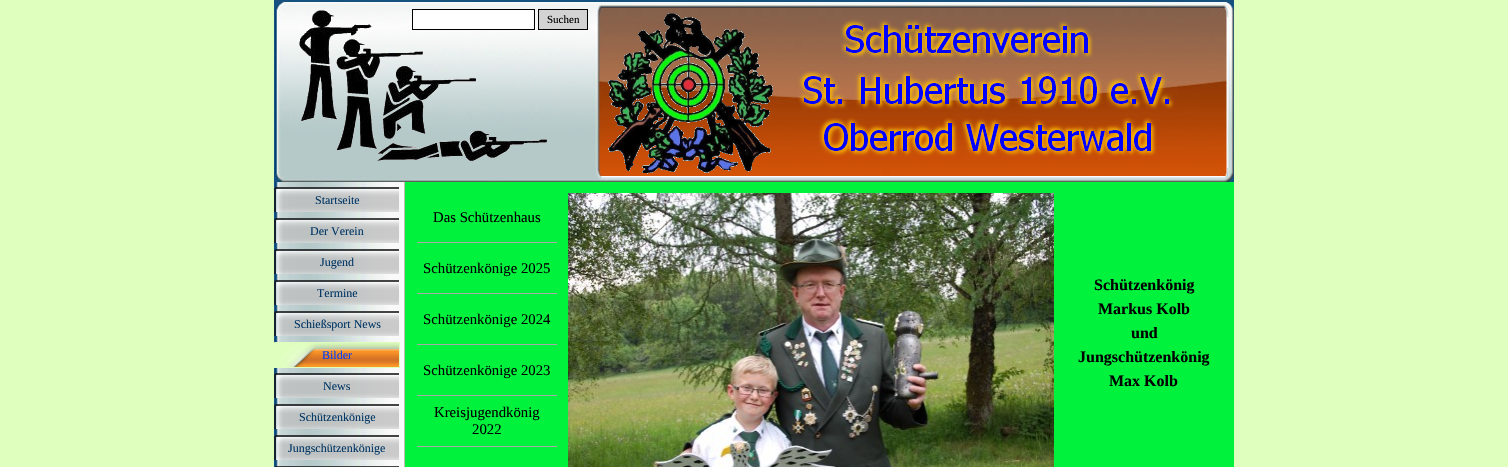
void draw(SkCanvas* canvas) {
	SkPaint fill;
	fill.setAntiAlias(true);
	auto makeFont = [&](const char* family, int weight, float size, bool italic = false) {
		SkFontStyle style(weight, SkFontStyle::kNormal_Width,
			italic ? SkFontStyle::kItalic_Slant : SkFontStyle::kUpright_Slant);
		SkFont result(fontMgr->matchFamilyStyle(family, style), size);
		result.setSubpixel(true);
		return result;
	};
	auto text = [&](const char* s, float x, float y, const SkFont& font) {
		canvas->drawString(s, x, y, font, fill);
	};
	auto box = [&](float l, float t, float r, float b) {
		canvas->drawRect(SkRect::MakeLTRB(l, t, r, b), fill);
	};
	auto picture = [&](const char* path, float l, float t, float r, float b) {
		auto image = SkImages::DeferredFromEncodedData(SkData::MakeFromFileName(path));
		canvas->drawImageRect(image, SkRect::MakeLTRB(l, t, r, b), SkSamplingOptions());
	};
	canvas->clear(0xFFDFFFBF);
	picture("image0.png", 274, 0, 1234, 182);
	picture("image1.png", 299, 10, 547, 161);
	fill.setColor(0xFFFFFFFF);
	canvas->drawRect(SkRect::MakeLTRB(412.5f, 9.5f, 534.5f, 29.5f), fill);
	fill.setStyle(SkPaint::kStroke_Style);
	fill.setStrokeWidth(1);
	fill.setColor(0xFF000000);
	canvas->drawRect(SkRect::MakeLTRB(412.5f, 9.5f, 534.5f, 29.5f), fill);
	fill.setStyle(SkPaint::kFill_Style);
	fill.setColor(0xFFD3D3D3);
	canvas->drawRect(SkRect::MakeLTRB(538.5f, 9.5f, 587.5f, 29.5f), fill);
	fill.setStyle(SkPaint::kStroke_Style);
	fill.setColor(0xFF000000);
	canvas->drawRect(SkRect::MakeLTRB(538.5f, 9.5f, 587.5f, 29.5f), fill);
	picture("image2.png", 608, 13, 773, 174);
	picture("image3.png", 840, 19, 1093, 58);
	picture("image4.png", 798, 71, 1174, 110);
	picture("image5.png", 818, 117, 1157, 157);
	picture("image6.png", 274, 182, 405, 467);
	picture("image7.png", 274, 187, 399, 212);
	picture("image8.png", 274, 218, 399, 243);
	picture("image7.png", 274, 249, 399, 274);
	picture("image8.png", 274, 280, 399, 305);
	picture("image7.png", 274, 311, 399, 336);
	picture("image9.png", 274, 342, 400, 368);
	picture("image7.png", 274, 373, 399, 398);
	picture("image8.png", 274, 404, 399, 429);
	picture("image7.png", 274, 435, 399, 460);
	picture("image10.png", 274, 466, 399, 467);
	fill.setStyle(SkPaint::kFill_Style);
	fill.setColor(0xFF00F23D);
	box(405, 182, 1234, 467);
	fill.setColor(0xFFA9A9A9);
	box(417, 242, 557, 243);
	box(417, 293, 557, 294);
	box(417, 344, 557, 345);
	box(417, 395, 557, 396);
	box(417, 446, 557, 447);
	picture("image11.png", 568, 193, 1054, 467);
	auto font1 = makeFont("Liberation Serif", 400, 11);
	fill.setColor(0xFF000000);
	text("Suchen", 547, 23, font1);
	auto font2 = makeFont("Liberation Serif", 400, 12);
	fill.setColor(0xFF003664);
	text("Startseite", 315, 204, font2);
	text("Der Verein", 310, 235, font2);
	text("Jugend", 320, 266, font2);
	text("Termine", 317, 297, font2);
	text("Schießsport News", 294, 328, font2);
	fill.setColor(0xFF0040FF);
	text("Bilder", 322, 359, font2);
	fill.setColor(0xFF003664);
	text("News", 323, 390, font2);
	text("Schützenkönige", 299, 421, font2);
	text("Jungschützenkönige", 288, 452, font2);
	auto font3 = makeFont("Liberation Serif", 400, 14.75f);
	fill.setColor(0xFF000000);
	text("Das Schützenhaus", 433, 222, font3);
	text("Schützenkönige 2025", 423, 273, font3);
	text("Schützenkönige 2024", 423, 324, font3);
	text("Schützenkönige 2023", 423, 375, font3);
	text("Kreisjugendkönig", 434, 417, font3);
	text("2022", 472, 434, font3);
	auto font4 = makeFont("Liberation Serif", 700, 16);
	text("Schützenkönig", 1094, 290, font4);
	text("Markus Kolb", 1098, 314, font4);
	text("und", 1131, 338, font4);
	text("Jungschützenkönig", 1078, 362, font4);
	text("Max Kolb", 1109, 386, font4);
}
